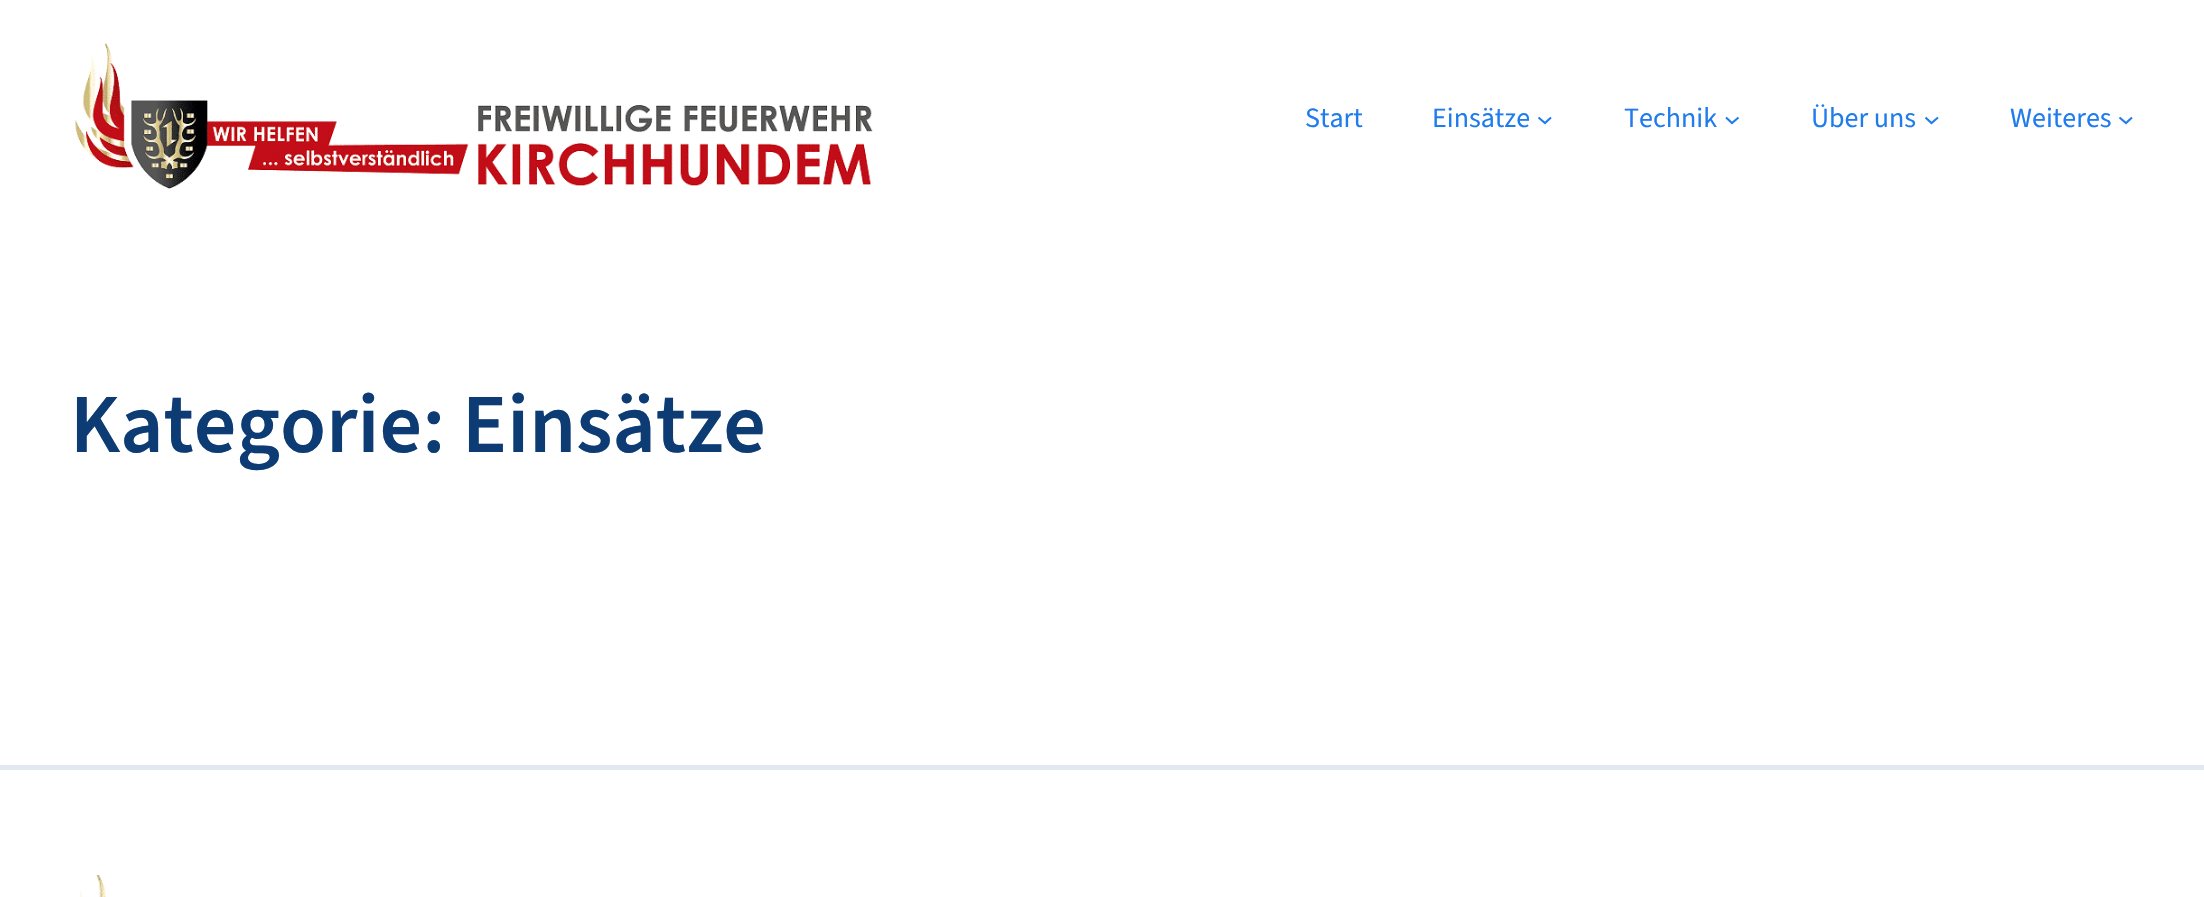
void draw(SkCanvas* canvas) {
	SkPaint fill;
	fill.setAntiAlias(true);
	auto makeFont = [&](const char* family, int weight, float size, bool italic = false) {
		SkFontStyle style(weight, SkFontStyle::kNormal_Width,
			italic ? SkFontStyle::kItalic_Slant : SkFontStyle::kUpright_Slant);
		SkFont result(fontMgr->matchFamilyStyle(family, style), size);
		result.setSubpixel(true);
		return result;
	};
	auto text = [&](const char* s, float x, float y, const SkFont& font) {
		canvas->drawString(s, x, y, font, fill);
	};
	auto box = [&](float l, float t, float r, float b) {
		canvas->drawRect(SkRect::MakeLTRB(l, t, r, b), fill);
	};
	auto picture = [&](const char* path, float l, float t, float r, float b) {
		auto image = SkImages::DeferredFromEncodedData(SkData::MakeFromFileName(path));
		canvas->drawImageRect(image, SkRect::MakeLTRB(l, t, r, b), SkSamplingOptions());
	};
	canvas->clear(0xFFFFFFFF);
	picture("image0.png", 75, 43, 873, 189);
	fill.setStyle(SkPaint::kStroke_Style);
	fill.setStrokeWidth(2.1f);
	fill.setColor(0xFF1F7CEC);
	canvas->drawPath(SkPathBuilder().moveTo(1538.5f, 117.5f).lineTo(1545, 123).lineTo(1551, 117.5f).detach(), fill);
	canvas->drawPath(SkPathBuilder().moveTo(1726, 117.5f).lineTo(1732, 123).lineTo(1738.5f, 117.5f).detach(), fill);
	canvas->drawPath(SkPathBuilder().moveTo(1925.5f, 117.5f).lineTo(1931.5f, 123).lineTo(1938, 117.5f).detach(), fill);
	canvas->drawPath(SkPathBuilder().moveTo(2119.5f, 117.5f).lineTo(2126, 123).lineTo(2132, 117.5f).detach(), fill);
	fill.setStyle(SkPaint::kFill_Style);
	fill.setColor(0xFFE2E8F0);
	box(0, 765, 2204, 770);
	picture("image1.png", 80, 875, 106, 897);
	auto font1 = makeFont("Source Sans 3", 400, 28);
	fill.setColor(0xFF1F7CEC);
	text("Start", 1305, 127, font1);
	text("Einsätze", 1432, 127, font1);
	text("Technik", 1624, 127, font1);
	text("Über uns", 1811, 127, font1);
	text("Weiteres", 2010, 127, font1);
	auto font2 = makeFont("Source Sans 3", 600, 84);
	fill.setColor(0xFF0D3C74);
	text("Kategorie: Einsätze", 70, 452, font2);
}
